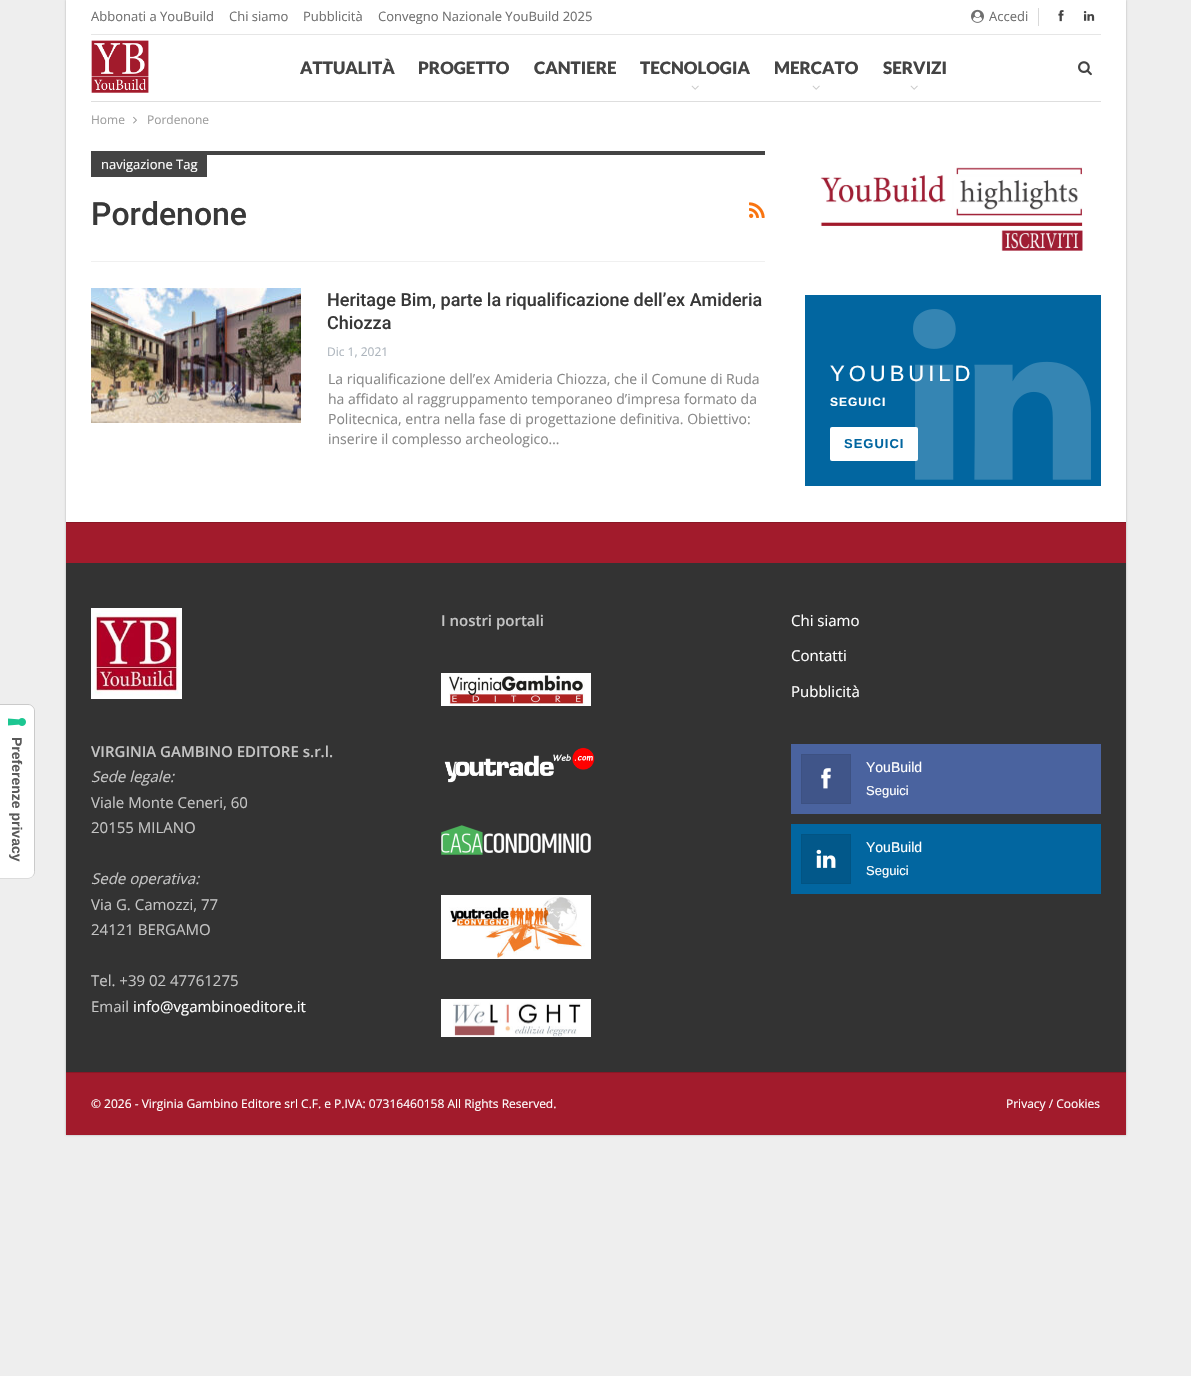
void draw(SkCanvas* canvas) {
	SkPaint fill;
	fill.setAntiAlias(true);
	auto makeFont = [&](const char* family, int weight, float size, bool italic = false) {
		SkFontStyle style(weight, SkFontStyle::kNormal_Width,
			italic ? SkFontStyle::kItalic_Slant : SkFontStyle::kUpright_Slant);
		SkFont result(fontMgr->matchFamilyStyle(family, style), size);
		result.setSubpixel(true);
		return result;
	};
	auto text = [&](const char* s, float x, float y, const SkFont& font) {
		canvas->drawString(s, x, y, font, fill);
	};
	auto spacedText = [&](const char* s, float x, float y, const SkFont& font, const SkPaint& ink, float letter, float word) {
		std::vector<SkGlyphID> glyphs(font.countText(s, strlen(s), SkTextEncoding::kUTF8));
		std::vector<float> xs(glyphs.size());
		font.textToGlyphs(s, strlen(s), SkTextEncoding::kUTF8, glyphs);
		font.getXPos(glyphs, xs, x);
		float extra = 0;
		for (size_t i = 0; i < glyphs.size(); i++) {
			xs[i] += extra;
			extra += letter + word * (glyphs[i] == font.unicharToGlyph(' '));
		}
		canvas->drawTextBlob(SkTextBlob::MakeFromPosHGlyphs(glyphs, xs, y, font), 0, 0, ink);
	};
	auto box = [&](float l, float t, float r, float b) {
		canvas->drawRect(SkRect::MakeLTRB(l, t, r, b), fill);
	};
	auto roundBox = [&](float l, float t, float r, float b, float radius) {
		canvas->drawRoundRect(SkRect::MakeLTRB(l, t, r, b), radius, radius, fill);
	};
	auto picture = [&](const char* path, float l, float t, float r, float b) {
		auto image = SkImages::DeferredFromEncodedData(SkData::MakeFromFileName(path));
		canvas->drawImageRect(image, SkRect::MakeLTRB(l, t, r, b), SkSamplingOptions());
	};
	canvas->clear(0xFFEEEEEE);
	fill.setStyle(SkPaint::kStroke_Style);
	fill.setStrokeWidth(1);
	fill.setColor(0xFFCACACA);
	canvas->drawPath(SkPathBuilder().moveTo(34.5f, 711).lineTo(34.5f, 871.5f).cubicTo(34.5f, 875, 31.5f, 878, 28, 878).lineTo(-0.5f, 878).lineTo(-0.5f, 704.5f).lineTo(28, 704.5f).cubicTo(31.5f, 704.5f, 34.5f, 707.5f, 34.5f, 711).close().detach(), fill);
	fill.setStyle(SkPaint::kFill_Style);
	fill.setColor(0xFFFFFFFF);
	canvas->drawPath(SkPathBuilder().moveTo(34, 711).lineTo(34, 872).cubicTo(34, 875, 31, 878, 28, 878).lineTo(0, 878).lineTo(0, 705).lineTo(28, 705).cubicTo(31, 705, 34, 708, 34, 711).close().detach(), fill);
	picture("image0.png", 8, 718, 26, 726);
	fill.setColor(0x45000000);
	fill.setMaskFilter(SkMaskFilter::MakeBlur(kNormal_SkBlurStyle, 1));
	canvas->drawRect(SkRect::MakeLTRB(66, 0, 1126, 1135), fill);
	fill.setMaskFilter(nullptr);
	fill.setColor(0xFFFFFFFF);
	box(66, 0, 1126, 522);
	fill.setColor(0xFFE6E6E6);
	box(91, 34, 1101, 35);
	picture("image1.png", 971, 9, 984, 23);
	fill.setColor(0xFFD9D9D9);
	box(1038, 8, 1039, 26);
	picture("image2.png", 1058, 10, 1064, 22);
	picture("image3.png", 1083, 11, 1095, 21);
	fill.setColor(0xFFDEDEDE);
	box(91, 101, 1101, 102);
	picture("image4.png", 91, 40, 149, 93);
	picture("image5.png", 691, 85, 699, 90);
	picture("image5.png", 812, 85, 820, 90);
	picture("image5.png", 910, 85, 918, 90);
	picture("image6.png", 1078, 61, 1092, 76);
	picture("image7.png", 133, 116, 137, 124);
	fill.setColor(0xFFF0F0F0);
	box(91, 261, 765, 262);
	fill.setColor(0xFF444444);
	box(207, 151, 765, 155);
	box(91, 151, 207, 177);
	picture("image8.png", 749, 202, 765, 218);
	picture("image9.png", 91, 288, 301, 423);
	picture("image10.png", 820, 167, 1083, 251);
	fill.setColor(0xFF0266A0);
	box(805, 295, 1101, 486);
	picture("image11.png", 913, 309, 1091, 480);
	fill.setColor(0xFFFFFFFF);
	roundBox(830, 427, 918, 461, 2);
	fill.setColor(0xFFA21B2C);
	box(66, 523, 1126, 563);
	fill.setColor(0xFF8A1725);
	box(66, 522, 1126, 523);
	fill.setColor(0xFF333333);
	box(66, 563, 1126, 1072);
	picture("image12.png", 91, 608, 182, 699);
	picture("image13.png", 441, 673, 591, 706);
	picture("image14.png", 444, 747, 595, 783);
	picture("image15.png", 441, 825, 591, 855);
	picture("image16.png", 441, 895, 591, 959);
	picture("image17.png", 441, 999, 591, 1037);
	fill.setColor(0xFF4A639F);
	box(791, 744, 1101, 814);
	fill.setColor(0xFF405589);
	canvas->drawRect(SkRect::MakeLTRB(801.5f, 754.5f, 850.5f, 803.5f), fill);
	fill.setStyle(SkPaint::kStroke_Style);
	fill.setColor(0xFF3D5182);
	canvas->drawRect(SkRect::MakeLTRB(801.5f, 754.5f, 850.5f, 803.5f), fill);
	picture("image18.png", 821, 768, 831, 789);
	fill.setStyle(SkPaint::kFill_Style);
	fill.setColor(0xFF0266A0);
	box(791, 824, 1101, 894);
	fill.setColor(0xFF02588A);
	canvas->drawRect(SkRect::MakeLTRB(801.5f, 834.5f, 850.5f, 883.5f), fill);
	fill.setStyle(SkPaint::kStroke_Style);
	fill.setColor(0xFF025483);
	canvas->drawRect(SkRect::MakeLTRB(801.5f, 834.5f, 850.5f, 883.5f), fill);
	picture("image19.png", 816, 849, 836, 868);
	fill.setStyle(SkPaint::kFill_Style);
	fill.setColor(0xFFA21B2C);
	box(66, 1073, 1126, 1135);
	fill.setColor(0xFF8A1725);
	box(66, 1072, 1126, 1073);
	auto font1 = makeFont("Liberation Sans", 700, 14);
	fill.setColor(0xFF595959);
	canvas->save();
	canvas->rotate(90, 12, 737);
	text("Preferenze privacy", 12, 737, font1);
	canvas->restore();
	auto font2 = makeFont("Open Sans", 400, 13);
	fill.setColor(0xFF707070);
	text("Abbonati a YouBuild", 91, 21, font2);
	text("Chi siamo", 229, 21, font2);
	text("Pubblicità", 303, 21, font2);
	text("Convegno Nazionale YouBuild 2025", 378, 21, font2);
	text("Accedi", 989, 21, font2);
	auto font3 = makeFont("Lato", 900, 17);
	fill.setColor(0xFF444444);
	text("ATTUALITÀ", 300, 74, font3);
	text("PROGETTO", 418, 74, font3);
	text("CANTIERE", 534, 74, font3);
	text("TECNOLOGIA", 640, 74, font3);
	text("MERCATO", 774, 74, font3);
	text("SERVIZI", 883, 74, font3);
	auto font4 = makeFont("Open Sans", 400, 12);
	fill.setColor(0xFF9E9E9E);
	text("Home", 91, 124, font4);
	text("Pordenone", 147, 124, font4);
	fill.setColor(0xFFFFFFFF);
	text("navigazione Tag", 101, 169, font2);
	auto font5 = makeFont("Roboto", 500, 32);
	fill.setColor(0xFF383838);
	text("Pordenone", 91, 225, font5);
	auto font6 = makeFont("Roboto", 500, 18);
	text("Heritage Bim, parte la riqualificazione dell’ex Amideria", 327, 306, font6);
	text("Chiozza", 327, 329, font6);
	fill.setColor(0xFFADB5BD);
	text("Dic 1, 2021", 327, 356, font4);
	auto font7 = makeFont("Open Sans", 400, 14);
	fill.setColor(0xFF888888);
	text("La riqualificazione dell’ex Amideria Chiozza, che il Comune di Ruda", 328, 384, font7);
	text("ha affidato al raggruppamento temporaneo d’impresa formato da", 328, 404, font7);
	text("Politecnica, entra nella fase di progettazione definitiva. Obiettivo:", 328, 424, font7);
	text("inserire il complesso archeologico…", 328, 444, font7);
	auto font8 = makeFont("Liberation Sans", 400, 22);
	fill.setColor(0xFFFFFFFF);
	spacedText("YOUBUILD", 830, 381, font8, fill, 4, 0);
	auto font9 = makeFont("Liberation Sans", 700, 12);
	spacedText("SEGUICI", 830, 406, font9, fill, 1, 0);
	auto font10 = makeFont("Liberation Sans", 700, 13);
	fill.setColor(0xFF0266A0);
	spacedText("SEGUICI", 844, 448, font10, fill, 1, 0);
	auto font11 = makeFont("Open Sans", 600, 15);
	fill.setColor(0xFFC4C4C4);
	text("VIRGINIA GAMBINO EDITORE s.r.l.", 91, 757, font11);
	auto font12 = makeFont("Open Sans", 400, 15, true);
	text("Sede legale:", 91, 782, font12);
	auto font13 = makeFont("Open Sans", 400, 15);
	text("Viale Monte Ceneri, 60", 91, 808, font13);
	text("20155 MILANO", 91, 833, font13);
	text("Sede operativa:", 91, 884, font12);
	text("Via G. Camozzi, 77", 91, 910, font13);
	text("24121 BERGAMO", 91, 935, font13);
	text("Tel. +39 02 47761275", 91, 986, font13);
	text("Email", 91, 1012, font13);
	fill.setColor(0xFFFFFFFF);
	text("info@vgambinoeditore.it", 133, 1012, font13);
	fill.setColor(0xFFC4C4C4);
	text("I nostri portali", 441, 626, font11);
	fill.setColor(0xFFFFFFFF);
	text("Chi siamo", 791, 626, font13);
	text("Contatti", 791, 661, font13);
	text("Pubblicità", 791, 697, font13);
	auto font14 = makeFont("Liberation Sans", 400, 14);
	text("YouBuild", 866, 772, font14);
	auto font15 = makeFont("Liberation Sans", 400, 13);
	text("Seguici", 866, 795, font15);
	text("YouBuild", 866, 852, font14);
	text("Seguici", 866, 875, font15);
	text("© 2026 - Virginia Gambino Editore srl C.F. e P.IVA: 07316460158 All Rights Reserved.", 91, 1108, font4);
	text("Privacy / Cookies", 1006, 1108, font4);
}
